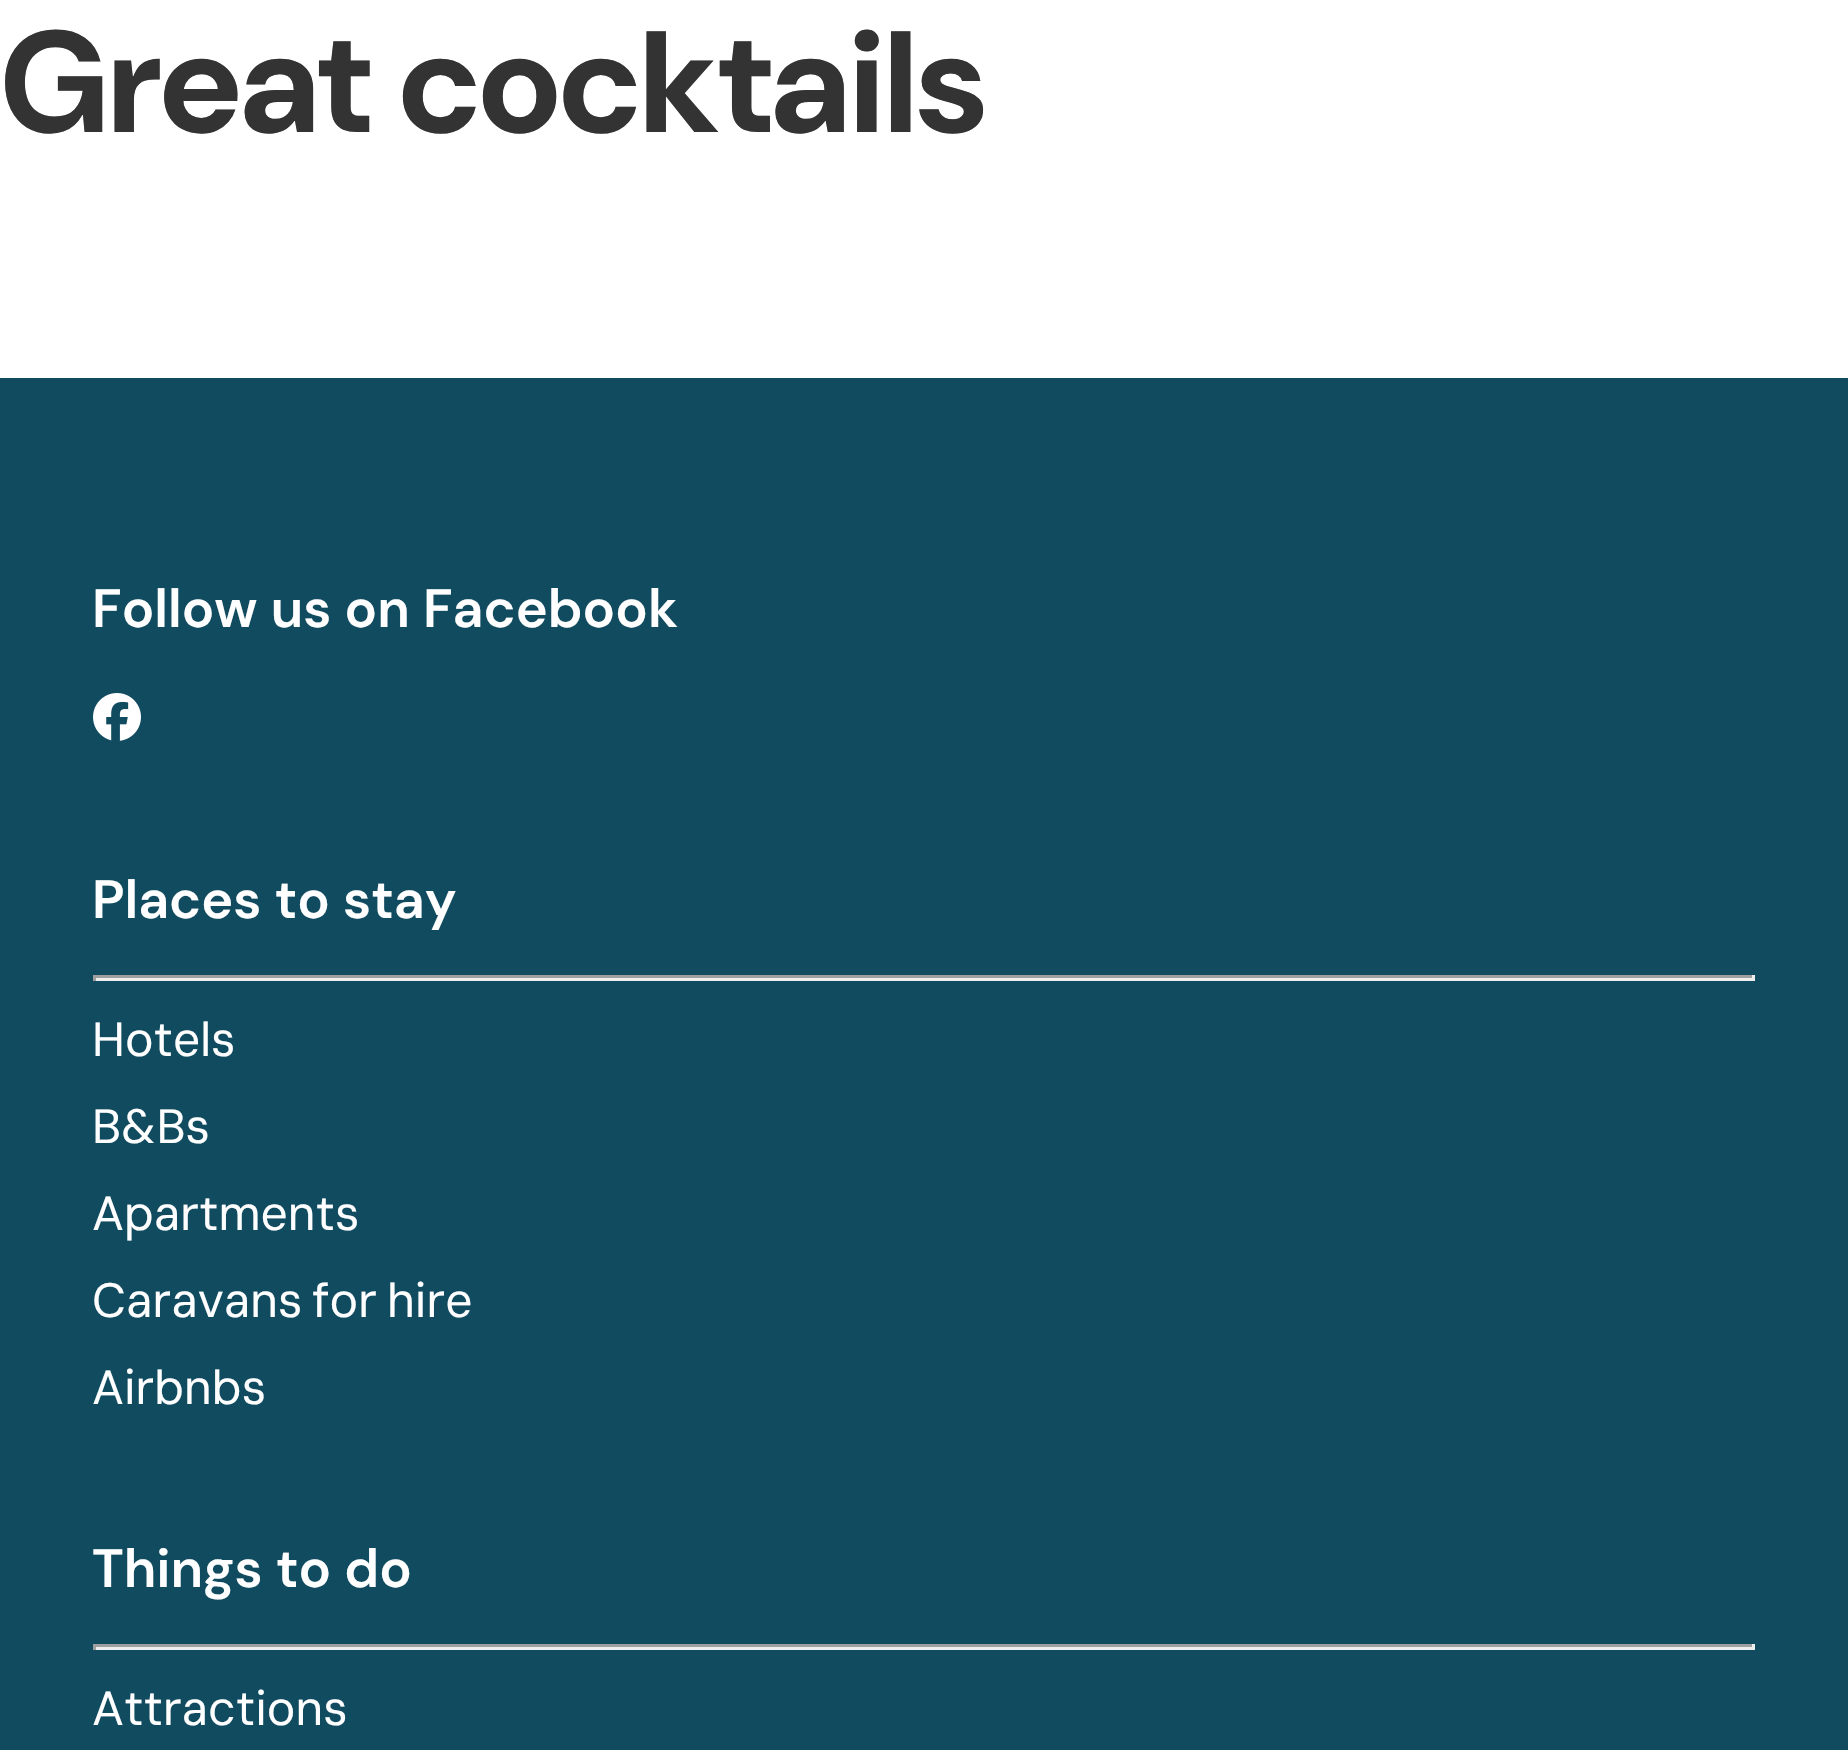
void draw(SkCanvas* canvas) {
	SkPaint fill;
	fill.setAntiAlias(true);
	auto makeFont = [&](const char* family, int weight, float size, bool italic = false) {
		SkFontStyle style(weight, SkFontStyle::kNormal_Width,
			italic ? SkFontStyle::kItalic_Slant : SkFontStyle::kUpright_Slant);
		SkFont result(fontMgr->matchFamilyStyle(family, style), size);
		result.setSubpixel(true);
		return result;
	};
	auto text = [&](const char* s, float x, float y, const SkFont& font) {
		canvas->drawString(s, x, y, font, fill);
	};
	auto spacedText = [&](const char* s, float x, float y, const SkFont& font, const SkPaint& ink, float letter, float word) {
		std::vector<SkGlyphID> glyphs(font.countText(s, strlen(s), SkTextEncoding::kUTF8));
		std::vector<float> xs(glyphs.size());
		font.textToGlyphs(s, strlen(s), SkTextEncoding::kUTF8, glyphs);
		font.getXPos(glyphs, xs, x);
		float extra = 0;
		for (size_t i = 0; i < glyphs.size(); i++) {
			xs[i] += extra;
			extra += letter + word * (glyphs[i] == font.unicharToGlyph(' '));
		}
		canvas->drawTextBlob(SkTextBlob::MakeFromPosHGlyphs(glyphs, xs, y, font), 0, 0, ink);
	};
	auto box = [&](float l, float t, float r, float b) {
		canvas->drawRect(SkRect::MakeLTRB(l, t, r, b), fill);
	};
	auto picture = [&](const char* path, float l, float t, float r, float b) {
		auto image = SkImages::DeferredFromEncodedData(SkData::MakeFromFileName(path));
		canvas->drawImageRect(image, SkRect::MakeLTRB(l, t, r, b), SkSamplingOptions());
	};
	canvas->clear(0xFFFFFFFF);
	fill.setColor(0xFF114B5F);
	box(0, 378, 1848, 1750);
	picture("image0.png", 93, 693, 141, 741);
	fill.setColor(0xFF9F9F9F);
	box(93, 975, 1755, 978);
	fill.setColor(0xFFEEEEEE);
	box(1752, 975, 1755, 981);
	box(93, 978, 1755, 981);
	fill.setColor(0xFF9F9F9F);
	box(93, 975, 96, 981);
	box(93, 1644, 1755, 1647);
	fill.setColor(0xFFEEEEEE);
	box(1752, 1644, 1755, 1650);
	box(93, 1647, 1755, 1650);
	fill.setColor(0xFF9F9F9F);
	box(93, 1644, 96, 1650);
	auto font1 = makeFont("DM Sans", 700, 144);
	fill.setColor(0xFF333333);
	text("Great cocktails", 0, 132, font1);
	auto font2 = makeFont("DM Sans", 600, 54);
	fill.setColor(0xFFFFFFFF);
	text("Follow us on Facebook", 92, 627, font2);
	text("Places to stay", 92, 918, font2);
	auto font3 = makeFont("DM Sans", 400, 48);
	text("Hotels", 92, 1056, font3);
	text("B&Bs", 92, 1143, font3);
	text("Apartments", 92, 1230, font3);
	spacedText("Caravans for hire", 92, 1317, font3, fill, 0, -3);
	text("Airbnbs", 92, 1404, font3);
	text("Things to do", 92, 1587, font2);
	text("Attractions", 92, 1725, font3);
}
